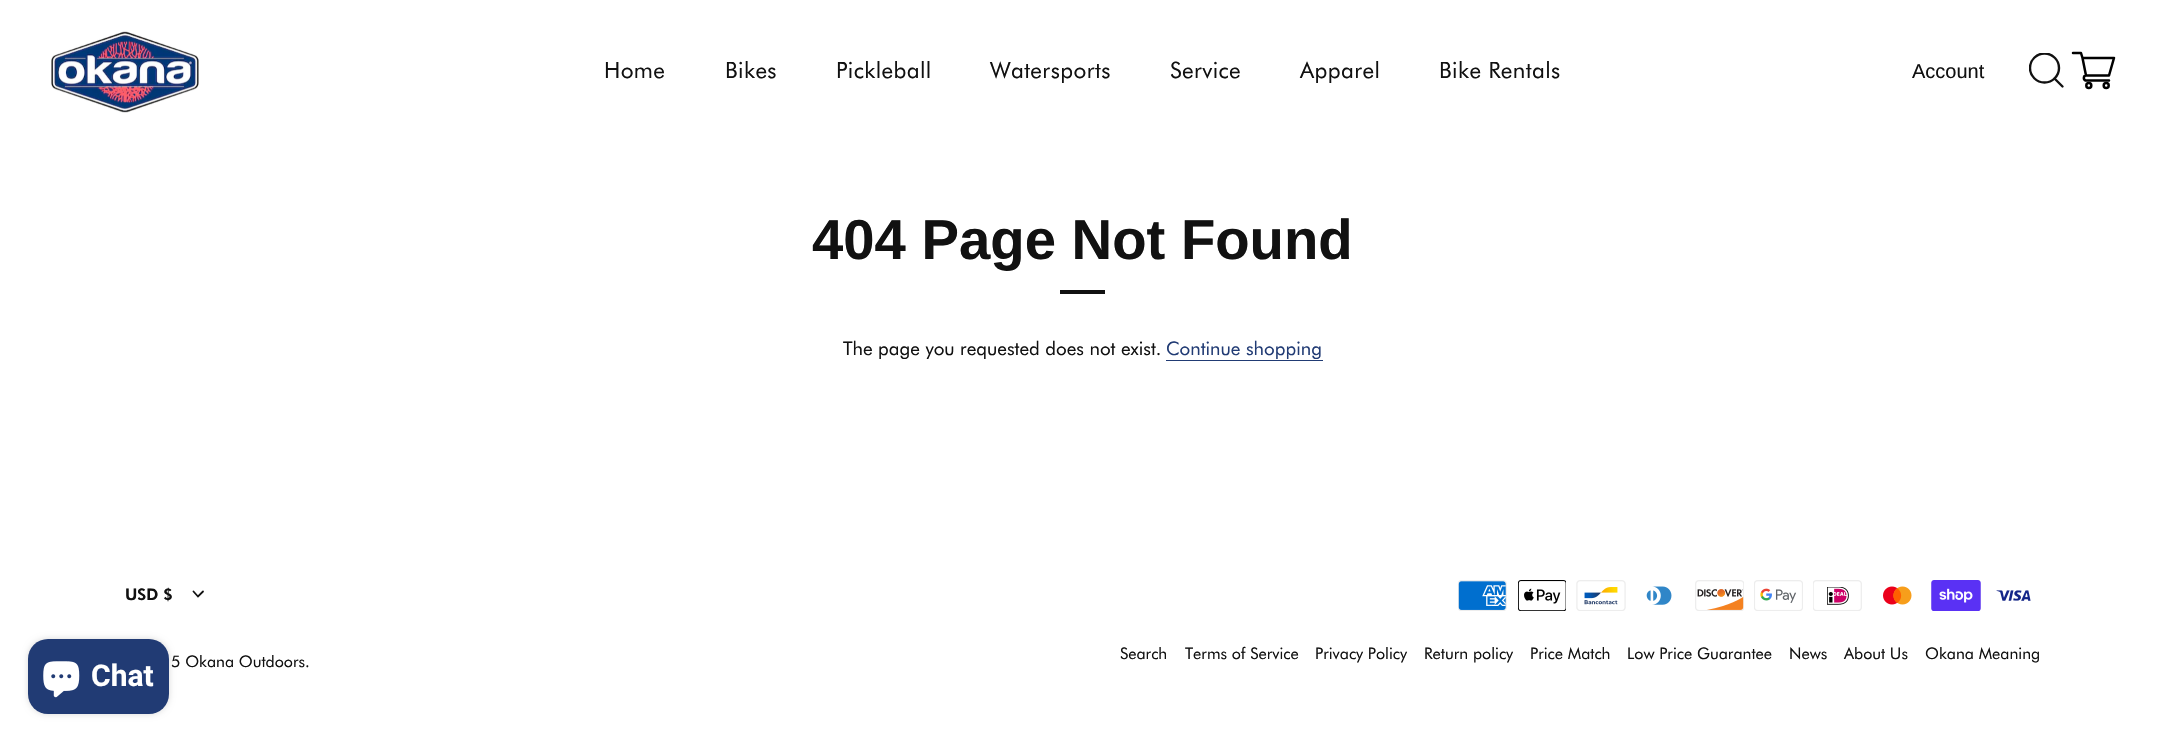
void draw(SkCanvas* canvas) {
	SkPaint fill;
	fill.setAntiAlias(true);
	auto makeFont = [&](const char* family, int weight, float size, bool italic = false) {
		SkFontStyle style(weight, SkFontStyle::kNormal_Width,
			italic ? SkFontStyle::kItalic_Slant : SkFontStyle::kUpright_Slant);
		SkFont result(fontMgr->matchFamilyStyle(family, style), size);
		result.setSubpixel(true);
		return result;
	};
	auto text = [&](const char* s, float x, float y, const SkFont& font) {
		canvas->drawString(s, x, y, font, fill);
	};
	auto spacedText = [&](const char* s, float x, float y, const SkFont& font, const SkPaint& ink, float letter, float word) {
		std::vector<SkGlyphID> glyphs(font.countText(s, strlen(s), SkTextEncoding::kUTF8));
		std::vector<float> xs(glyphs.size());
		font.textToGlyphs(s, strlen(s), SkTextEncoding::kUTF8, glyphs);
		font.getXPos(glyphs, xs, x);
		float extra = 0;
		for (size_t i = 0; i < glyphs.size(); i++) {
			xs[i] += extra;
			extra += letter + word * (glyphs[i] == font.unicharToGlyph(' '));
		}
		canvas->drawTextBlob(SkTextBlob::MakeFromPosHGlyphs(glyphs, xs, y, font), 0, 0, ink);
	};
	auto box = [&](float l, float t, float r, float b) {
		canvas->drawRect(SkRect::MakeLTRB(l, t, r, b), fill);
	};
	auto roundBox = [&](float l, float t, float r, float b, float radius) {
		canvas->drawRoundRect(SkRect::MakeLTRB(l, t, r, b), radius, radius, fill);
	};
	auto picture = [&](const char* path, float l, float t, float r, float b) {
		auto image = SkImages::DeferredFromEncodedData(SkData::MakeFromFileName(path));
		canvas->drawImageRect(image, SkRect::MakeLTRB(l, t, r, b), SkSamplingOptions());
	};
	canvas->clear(0xFFFFFFFF);
	picture("image0.png", 51, 31, 199, 113);
	canvas->save();
	canvas->clipRect(SkRect::MakeLTRB(2029, 53, 2065, 89));
	fill.setStyle(SkPaint::kStroke_Style);
	fill.setStrokeWidth(2.4f);
	fill.setColor(0xFF111111);
	canvas->drawCircle(2044.5f, 68, 14.5f, fill);
	canvas->restore();
	fill.setStrokeCap(SkPaint::kRound_Cap);
	fill.setStrokeJoin(SkPaint::kRound_Join);
	canvas->drawPath(SkPathBuilder().moveTo(2062.5f, 86.5f).lineTo(2054.5f, 78.5f).detach(), fill);
	fill.setStrokeWidth(2.5f);
	fill.setColor(0xFF000000);
	canvas->drawPath(SkPathBuilder().moveTo(2073, 53).lineTo(2081, 53).lineTo(2082.5f, 58).moveTo(2086, 75.5f).lineTo(2109, 75.5f).lineTo(2114, 58).lineTo(2082.5f, 58).moveTo(2086, 75.5f).lineTo(2082.5f, 58).moveTo(2086, 75.5f).cubicTo(2083.5f, 75.5f, 2083, 79.5f, 2085.5f, 80.5f).lineTo(2109, 80.5f).detach(), fill);
	fill.setStrokeCap(SkPaint::kButt_Cap);
	fill.setStrokeJoin(SkPaint::kMiter_Join);
	canvas->drawCircle(2106.2f, 85.6f, 2.5f, fill);
	canvas->drawCircle(2088.8f, 85.6f, 2.5f, fill);
	fill.setStyle(SkPaint::kFill_Style);
	fill.setColor(0xFF111111);
	box(1060, 290, 1105, 294);
	fill.setColor(0xFF213B74);
	box(1166, 360, 1323, 361);
	fill.setStyle(SkPaint::kStroke_Style);
	fill.setStrokeWidth(1.8f);
	fill.setStrokeCap(SkPaint::kRound_Cap);
	fill.setColor(0xFF111111);
	canvas->drawPath(SkPathBuilder().moveTo(193.5f, 591.5f).lineTo(198, 596.5f).lineTo(203, 591.5f).detach(), fill);
	picture("image1.png", 1458, 580, 1507, 611);
	picture("image2.png", 1518, 580, 1566, 611);
	picture("image3.png", 1576, 580, 1626, 611);
	picture("image4.png", 1646, 586, 1672, 605);
	picture("image5.png", 1695, 580, 1744, 611);
	picture("image6.png", 1754, 580, 1803, 611);
	picture("image7.png", 1813, 580, 1862, 611);
	picture("image8.png", 1883, 586, 1912, 605);
	picture("image9.png", 1931, 580, 1981, 611);
	picture("image10.png", 1996, 590, 2031, 601);
	fill.setStyle(SkPaint::kFill_Style);
	fill.setColor(0x26000000);
	fill.setMaskFilter(SkMaskFilter::MakeBlur(kNormal_SkBlurStyle, 3));
	canvas->drawRoundRect(SkRect::MakeLTRB(28, 639, 169, 714), 20, 20, fill);
	fill.setMaskFilter(nullptr);
	fill.setColor(0xFF213B74);
	roundBox(28, 639, 169, 714, 20);
	picture("image11.png", 43, 661, 80, 698);
	auto font1 = makeFont("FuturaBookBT", 400, 22.5f);
	fill.setColor(0xFF111111);
	spacedText("Home", 604, 78, font1, fill, 0.4f, 0);
	spacedText("Bikes", 725, 78, font1, fill, 0.4f, 0);
	spacedText("Pickleball", 836, 78, font1, fill, 0.4f, 0);
	spacedText("Watersports", 990, 78, font1, fill, 0.4f, 0);
	spacedText("Service", 1170, 78, font1, fill, 0.4f, 0);
	spacedText("Apparel", 1300, 78, font1, fill, 0.4f, 0);
	spacedText("Bike Rentals", 1439, 78, font1, fill, 0.4f, 0);
	auto font2 = makeFont("Liberation Sans", 400, 20);
	text("Account", 1912, 78, font2);
	auto font3 = makeFont("Liberation Sans", 700, 56.25f);
	text("404 Page Not Found", 812, 259, font3);
	auto font4 = makeFont("FuturaBookBT", 400, 18.75f);
	text("The page you requested does not exist.", 843, 355, font4);
	fill.setColor(0xFF213B74);
	text("Continue shopping", 1166, 355, font4);
	auto font5 = makeFont("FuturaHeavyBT", 900, 16);
	fill.setColor(0xFF111111);
	text("USD $", 125, 600, font5);
	auto font6 = makeFont("FuturaBookBT", 400, 16);
	text("5 Okana Outdoors.", 171, 667, font6);
	text("Search", 1120, 659, font6);
	text("Terms of Service", 1185, 659, font6);
	text("Privacy Policy", 1315, 659, font6);
	text("Return policy", 1424, 659, font6);
	text("Price Match", 1530, 659, font6);
	text("Low Price Guarantee", 1627, 659, font6);
	text("News", 1789, 659, font6);
	text("About Us", 1844, 659, font6);
	text("Okana Meaning", 1925, 659, font6);
	auto font7 = makeFont("Roboto", 700, 30);
	fill.setColor(0xFFFFFFFF);
	text("Chat", 91, 686, font7);
}
